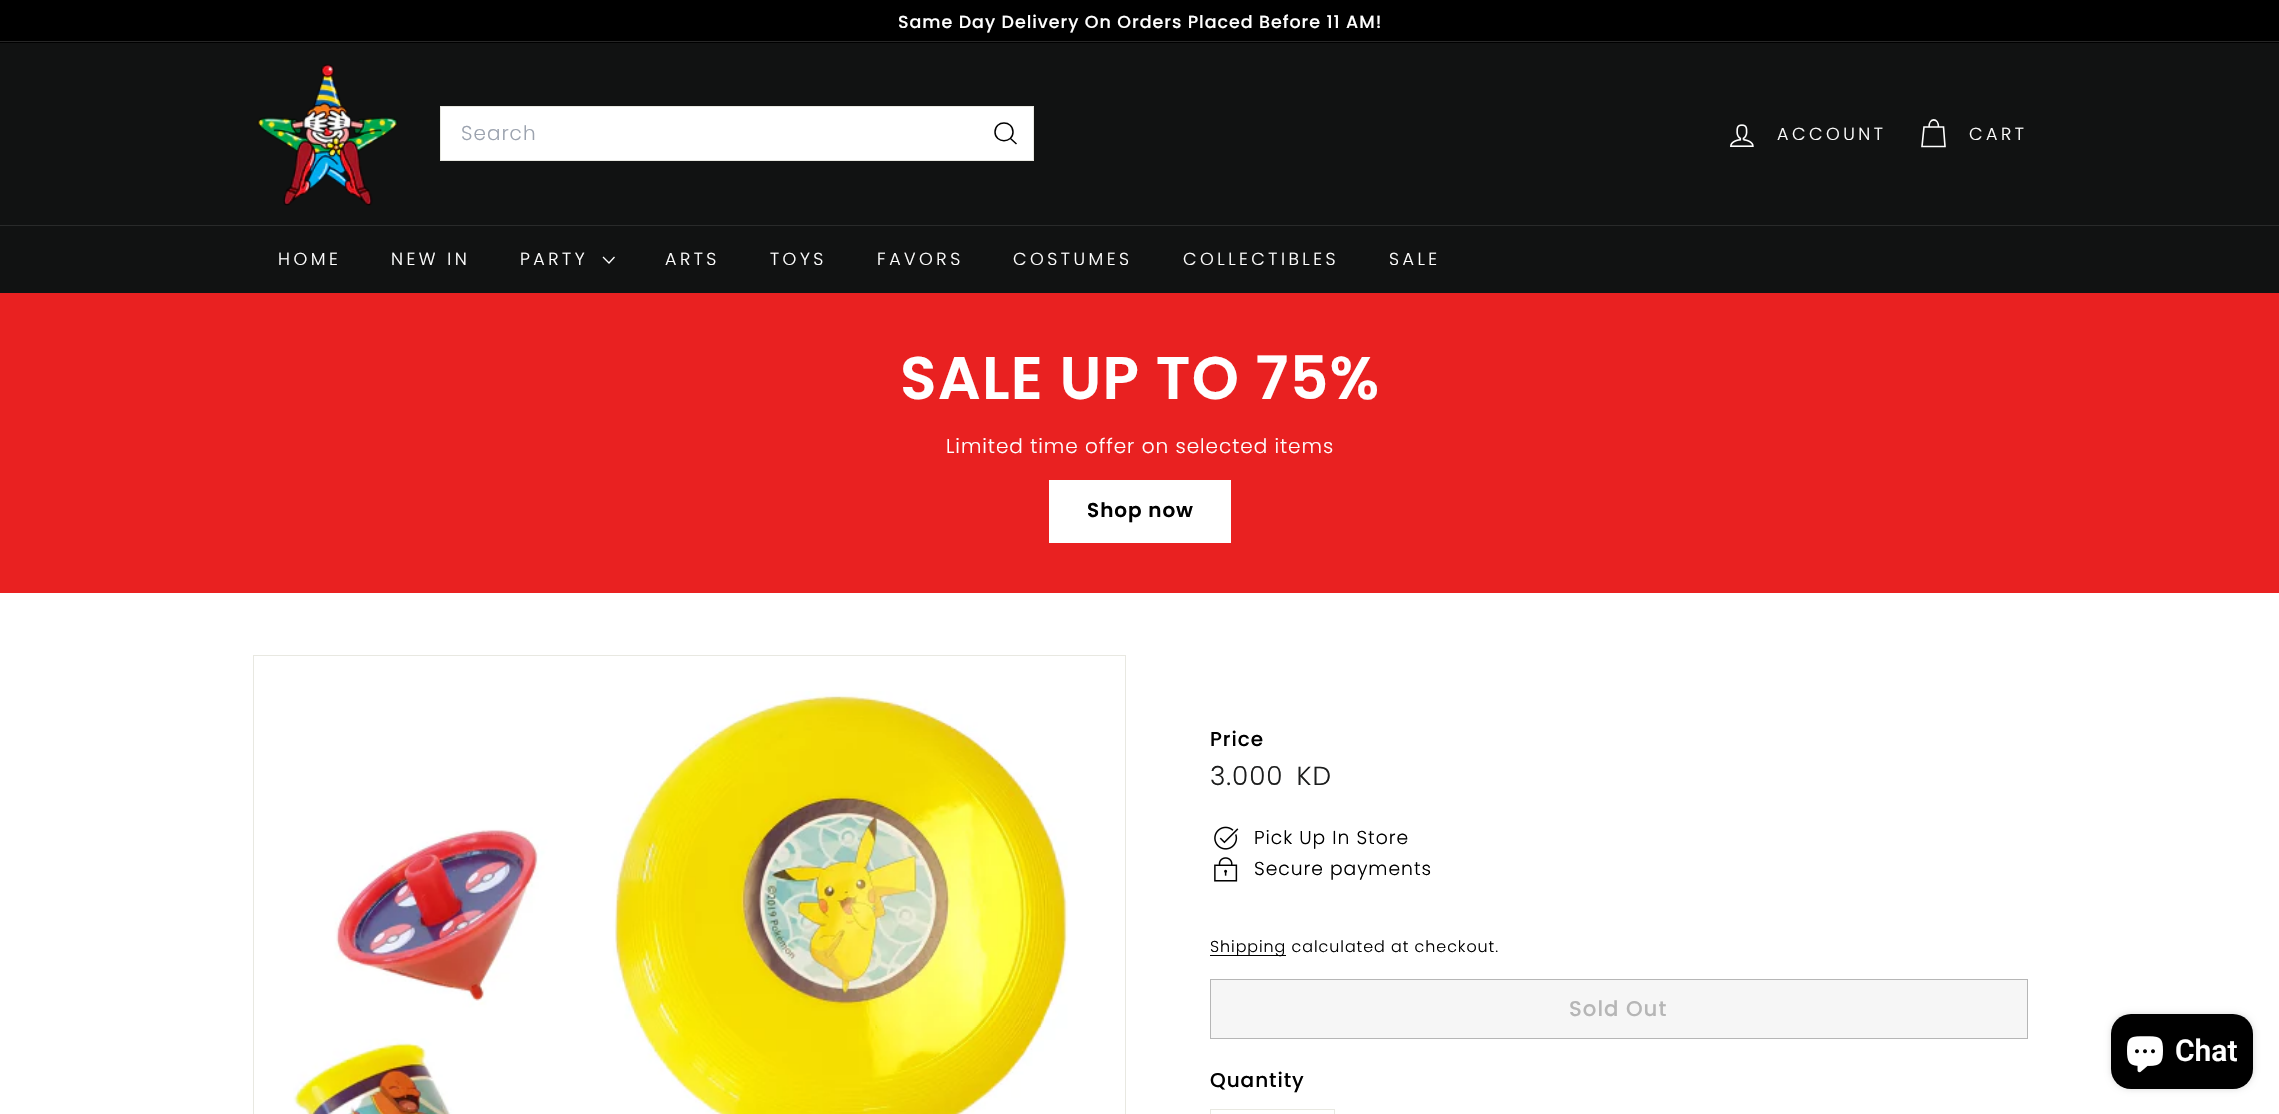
void draw(SkCanvas* canvas) {
	SkPaint fill;
	fill.setAntiAlias(true);
	auto makeFont = [&](const char* family, int weight, float size, bool italic = false) {
		SkFontStyle style(weight, SkFontStyle::kNormal_Width,
			italic ? SkFontStyle::kItalic_Slant : SkFontStyle::kUpright_Slant);
		SkFont result(fontMgr->matchFamilyStyle(family, style), size);
		result.setSubpixel(true);
		return result;
	};
	auto text = [&](const char* s, float x, float y, const SkFont& font) {
		canvas->drawString(s, x, y, font, fill);
	};
	auto spacedText = [&](const char* s, float x, float y, const SkFont& font, const SkPaint& ink, float letter, float word) {
		std::vector<SkGlyphID> glyphs(font.countText(s, strlen(s), SkTextEncoding::kUTF8));
		std::vector<float> xs(glyphs.size());
		font.textToGlyphs(s, strlen(s), SkTextEncoding::kUTF8, glyphs);
		font.getXPos(glyphs, xs, x);
		float extra = 0;
		for (size_t i = 0; i < glyphs.size(); i++) {
			xs[i] += extra;
			extra += letter + word * (glyphs[i] == font.unicharToGlyph(' '));
		}
		canvas->drawTextBlob(SkTextBlob::MakeFromPosHGlyphs(glyphs, xs, y, font), 0, 0, ink);
	};
	auto box = [&](float l, float t, float r, float b) {
		canvas->drawRect(SkRect::MakeLTRB(l, t, r, b), fill);
	};
	auto roundBox = [&](float l, float t, float r, float b, float radius) {
		canvas->drawRoundRect(SkRect::MakeLTRB(l, t, r, b), radius, radius, fill);
	};
	auto picture = [&](const char* path, float l, float t, float r, float b) {
		auto image = SkImages::DeferredFromEncodedData(SkData::MakeFromFileName(path));
		canvas->drawImageRect(image, SkRect::MakeLTRB(l, t, r, b), SkSamplingOptions());
	};
	canvas->clear(0xFFFFFFFF);
	fill.setColor(0xFF000000);
	box(0, 0, 2279, 43);
	fill.setColor(0xFF262626);
	box(0, 41, 2279, 42);
	fill.setColor(0xFF111212);
	box(0, 43, 2279, 225);
	picture("image0.png", 257, 64, 398, 206);
	fill.setColor(0xFFFFFFFF);
	canvas->drawRect(SkRect::MakeLTRB(440.5f, 106.5f, 1033.5f, 160.5f), fill);
	fill.setStyle(SkPaint::kStroke_Style);
	fill.setStrokeWidth(1);
	fill.setColor(0xFFE8E8E1);
	canvas->drawRect(SkRect::MakeLTRB(440.5f, 106.5f, 1033.5f, 160.5f), fill);
	fill.setStrokeWidth(1.5f);
	fill.setColor(0xFF000000);
	canvas->drawPath(SkPathBuilder().moveTo(1013, 132).cubicTo(1013, 143.5f, 995, 143.5f, 995, 132).cubicTo(995, 120, 1013, 120, 1013, 132).moveTo(1016.5f, 144).lineTo(1010.5f, 138.5f).detach(), fill);
	picture("image1.png", 1730, 124, 1754, 147);
	fill.setStrokeWidth(1.6f);
	fill.setColor(0xFFFFFFFF);
	canvas->drawPath(SkPathBuilder().moveTo(1929, 127).cubicTo(1929, 117.5f, 1938.5f, 117.5f, 1938.5f, 127).moveTo(1924, 127).lineTo(1943.5f, 127).lineTo(1945, 146.5f).lineTo(1922, 146.5f).close().detach(), fill);
	fill.setStyle(SkPaint::kFill_Style);
	fill.setColor(0xFF111212);
	box(0, 226, 2279, 293);
	fill.setColor(0xFF292A2A);
	box(0, 225, 2279, 226);
	fill.setStyle(SkPaint::kStroke_Style);
	fill.setStrokeWidth(1.3f);
	fill.setColor(0xFFFFFFFF);
	canvas->drawPath(SkPathBuilder().moveTo(603, 257).lineTo(609, 263).lineTo(614.5f, 257).detach(), fill);
	fill.setStyle(SkPaint::kFill_Style);
	fill.setColor(0xFFE92121);
	box(0, 293, 2279, 593);
	fill.setColor(0xFFFFFFFF);
	box(1049, 480, 1231, 543);
	fill.setStyle(SkPaint::kStroke_Style);
	fill.setStrokeWidth(1);
	fill.setColor(0xFFE8E8E1);
	canvas->drawRect(SkRect::MakeLTRB(253.5f, 655.5f, 1125.5f, 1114.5f), fill);
	picture("image2.png", 293, 691, 1068, 1114);
	picture("image3.png", 1214, 826, 1239, 850);
	picture("image4.png", 1214, 857, 1238, 882);
	fill.setStyle(SkPaint::kFill_Style);
	fill.setColor(0xFF000000);
	box(1210, 955, 1286, 956);
	fill.setColor(0xFFF6F6F6);
	canvas->drawRect(SkRect::MakeLTRB(1210.5f, 979.5f, 2027.5f, 1038.5f), fill);
	fill.setStyle(SkPaint::kStroke_Style);
	fill.setColor(0xFFB6B6B6);
	canvas->drawRect(SkRect::MakeLTRB(1210.5f, 979.5f, 2027.5f, 1038.5f), fill);
	fill.setColor(0xFFE8E8E1);
	canvas->drawRect(SkRect::MakeLTRB(1210.5f, 1109.5f, 1334.5f, 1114.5f), fill);
	fill.setStyle(SkPaint::kFill_Style);
	fill.setColor(0x26000000);
	fill.setMaskFilter(SkMaskFilter::MakeBlur(kNormal_SkBlurStyle, 3));
	canvas->drawRoundRect(SkRect::MakeLTRB(2111, 1014, 2253, 1089), 20, 20, fill);
	fill.setMaskFilter(nullptr);
	fill.setColor(0xFF000000);
	roundBox(2111, 1014, 2253, 1089, 20);
	picture("image5.png", 2127, 1036, 2163, 1073);
	auto font1 = makeFont("Poppins", 500, 17.5f);
	fill.setColor(0xFFFFFFFF);
	spacedText("Same Day Delivery On Orders Placed Before 11 AM!", 898, 28, font1, fill, 0.95f, 0);
	auto font2 = makeFont("Poppins", 300, 20);
	fill.setColor(0xFF9CA3AF);
	spacedText("Search", 461, 140, font2, fill, 1, 0);
	auto font3 = makeFont("Poppins", 300, 17.5f);
	fill.setColor(0xFFFFFFFF);
	spacedText("ACCOUNT", 1777, 140, font3, fill, 3.5f, 0);
	spacedText("CART", 1969, 140, font3, fill, 3.5f, 0);
	spacedText("HOME", 278, 265, font3, fill, 3.5f, 0);
	spacedText("NEW IN", 391, 265, font3, fill, 3.5f, 0);
	spacedText("PARTY", 520, 265, font3, fill, 3.5f, 0);
	spacedText("ARTS", 665, 265, font3, fill, 3.5f, 0);
	spacedText("TOYS", 770, 265, font3, fill, 3.5f, 0);
	spacedText("FAVORS", 877, 265, font3, fill, 3.5f, 0);
	spacedText("COSTUMES", 1013, 265, font3, fill, 3.5f, 0);
	spacedText("COLLECTIBLES", 1183, 265, font3, fill, 3.5f, 0);
	spacedText("SALE", 1389, 265, font3, fill, 3.5f, 0);
	auto font4 = makeFont("Poppins", 600, 60);
	spacedText("SALE UP TO 75%", 900, 399, font4, fill, 1.25f, 0);
	spacedText("Limited time offer on selected items", 946, 453, font2, fill, 0.95f, 0);
	auto font5 = makeFont("Poppins", 600, 20);
	fill.setColor(0xFF000000);
	spacedText("Shop now", 1087, 517, font5, fill, 0.95f, 0);
	auto font6 = makeFont("Poppins", 500, 20);
	spacedText("Price", 1210, 746, font6, fill, 0.95f, 0);
	auto font7 = makeFont("Poppins", 300, 26.25f);
	fill.setColor(0xFF1C1D1D);
	spacedText("3.000 KD", 1210, 785, font7, fill, 0.95f, 5);
	auto font8 = makeFont("Poppins", 300, 18.75f);
	fill.setColor(0xFF000000);
	spacedText("Pick Up In Store", 1254, 844, font8, fill, 0.95f, 0);
	spacedText("Secure payments", 1254, 875, font8, fill, 0.95f, 0);
	auto font9 = makeFont("Poppins", 300, 15.9f);
	spacedText("Shipping calculated at checkout.", 1210, 952, font9, fill, 0.95f, 0);
	auto font10 = makeFont("Poppins", 500, 21.25f);
	fill.setColor(0xFFB6B6B6);
	spacedText("Sold Out", 1569, 1016, font10, fill, 1, 0);
	fill.setColor(0xFF000000);
	spacedText("Quantity", 1210, 1087, font6, fill, 0.95f, 0);
	auto font11 = makeFont("Roboto", 600, 30);
	fill.setColor(0xFFFFFFFF);
	text("Chat", 2175, 1061, font11);
}
